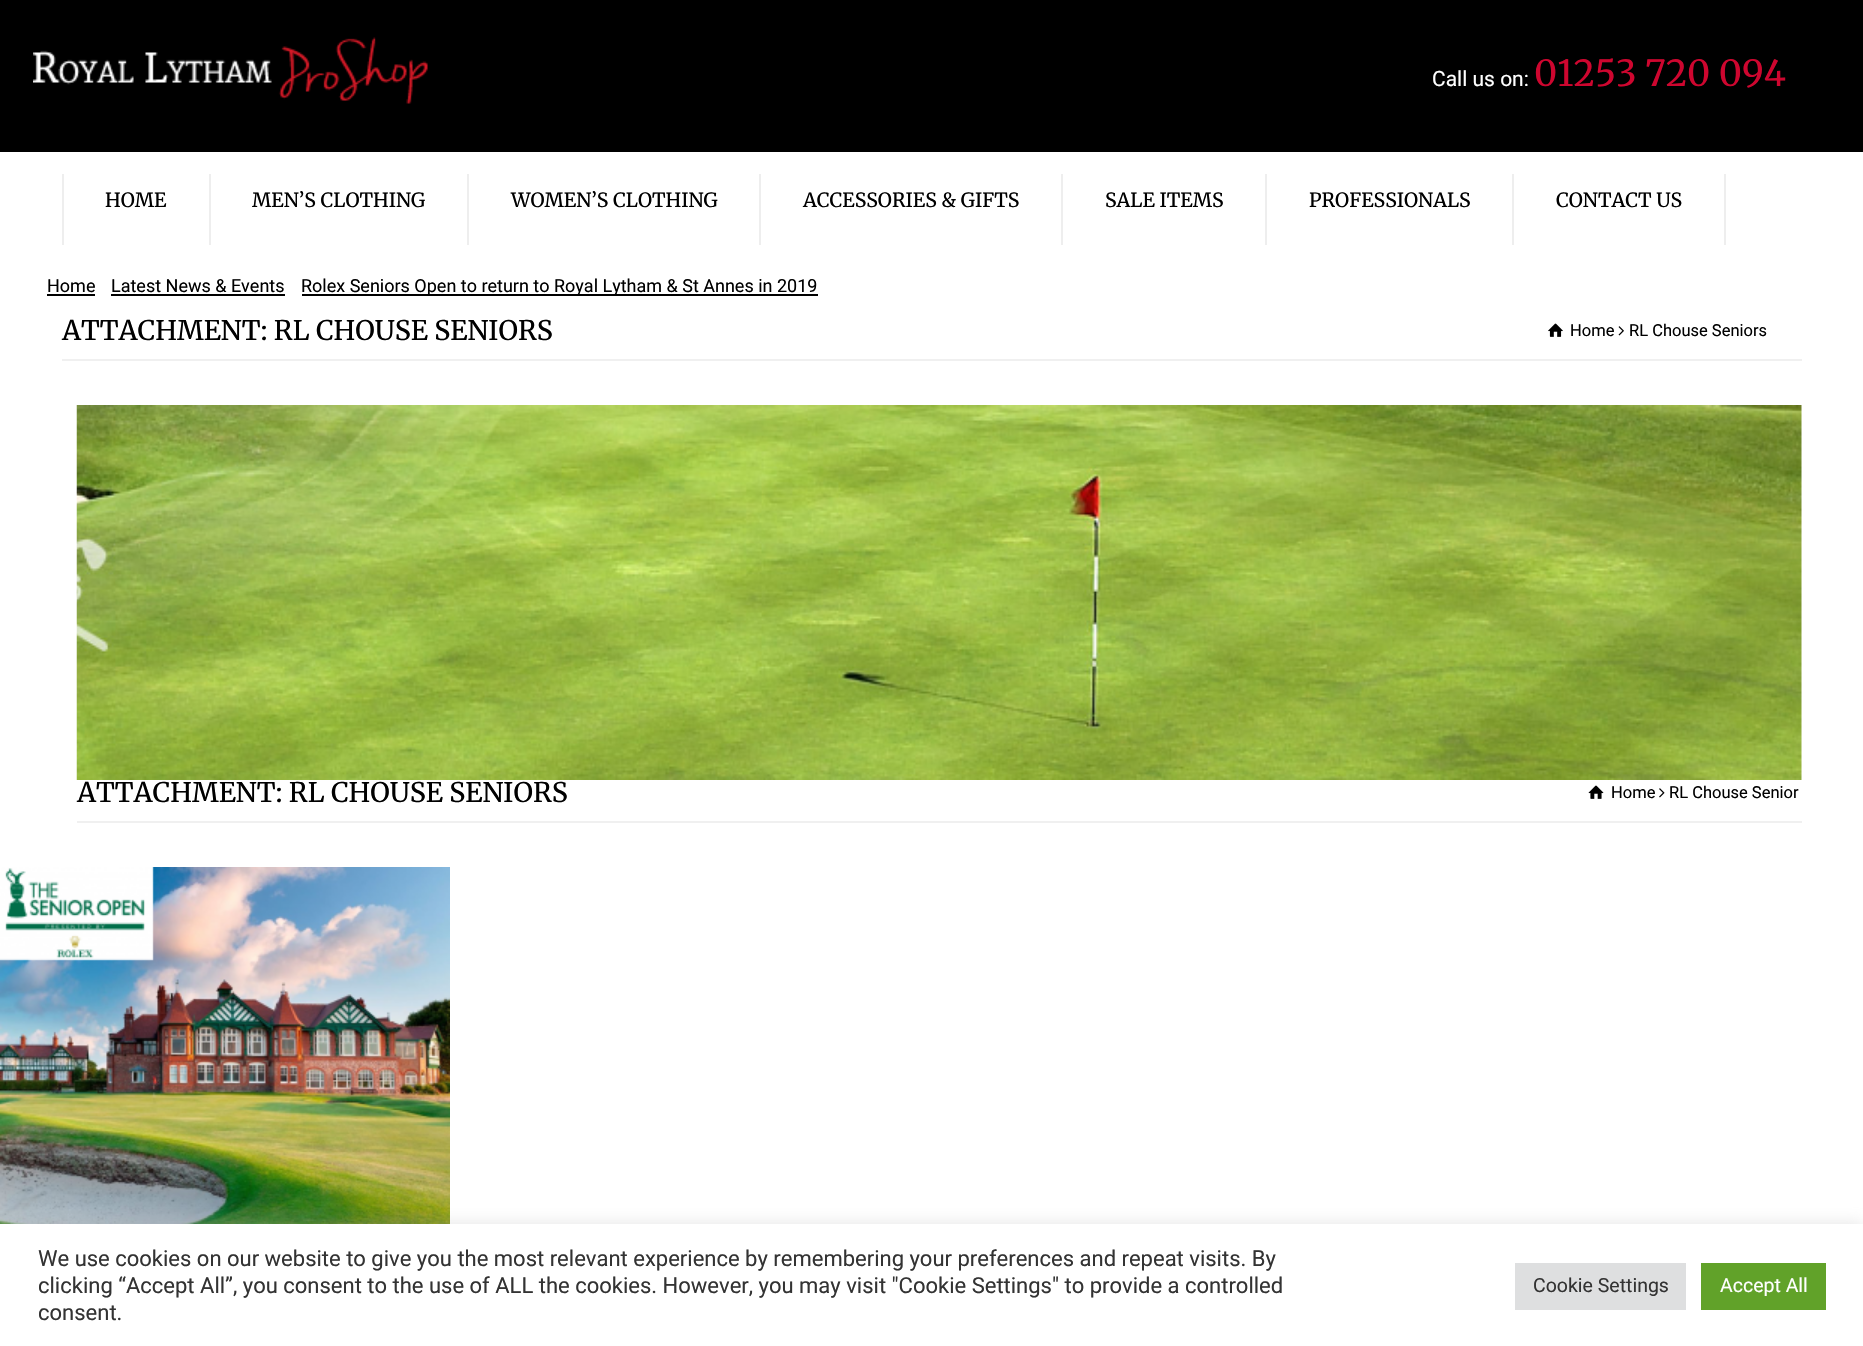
void draw(SkCanvas* canvas) {
	SkPaint fill;
	fill.setAntiAlias(true);
	auto makeFont = [&](const char* family, int weight, float size, bool italic = false) {
		SkFontStyle style(weight, SkFontStyle::kNormal_Width,
			italic ? SkFontStyle::kItalic_Slant : SkFontStyle::kUpright_Slant);
		SkFont result(fontMgr->matchFamilyStyle(family, style), size);
		result.setSubpixel(true);
		return result;
	};
	auto text = [&](const char* s, float x, float y, const SkFont& font) {
		canvas->drawString(s, x, y, font, fill);
	};
	auto box = [&](float l, float t, float r, float b) {
		canvas->drawRect(SkRect::MakeLTRB(l, t, r, b), fill);
	};
	auto picture = [&](const char* path, float l, float t, float r, float b) {
		auto image = SkImages::DeferredFromEncodedData(SkData::MakeFromFileName(path));
		canvas->drawImageRect(image, SkRect::MakeLTRB(l, t, r, b), SkSamplingOptions());
	};
	canvas->clear(0xFFFFFFFF);
	fill.setColor(0xFF000000);
	box(0, 0, 1863, 152);
	picture("image0.png", 33, 37, 428, 104);
	fill.setColor(0xFFEEEEEE);
	box(209, 174, 211, 245);
	box(62, 174, 64, 245);
	box(467, 174, 469, 245);
	box(759, 174, 761, 245);
	box(1061, 174, 1063, 245);
	box(1265, 174, 1267, 245);
	box(1512, 174, 1514, 245);
	box(1724, 174, 1726, 245);
	fill.setColor(0xFF000000);
	box(47, 294, 95, 296);
	box(111, 294, 285, 296);
	box(302, 294, 818, 296);
	fill.setColor(0xFFF0F0F0);
	box(62, 359, 1802, 361);
	picture("image1.png", 1548, 323, 1563, 337);
	picture("image2.png", 1618, 326, 1624, 336);
	picture("image3.png", 76, 405, 1802, 780);
	box(77, 821, 1802, 823);
	picture("image4.png", 1588, 785, 1604, 799);
	picture("image5.png", 1659, 788, 1665, 798);
	picture("image6.png", 0, 867, 450, 1224);
	fill.setColor(0x4DACABAB);
	fill.setMaskFilter(SkMaskFilter::MakeBlur(kNormal_SkBlurStyle, 7.5f));
	canvas->drawRect(SkRect::MakeLTRB(0, 1223, 1863, 1346), fill);
	fill.setMaskFilter(nullptr);
	fill.setColor(0xFFFFFFFF);
	box(0, 1224, 1863, 1346);
	fill.setColor(0xFFDEDFE0);
	box(1515, 1263, 1686, 1310);
	fill.setColor(0xFF61A229);
	box(1701, 1263, 1826, 1310);
	auto font1 = makeFont("Roboto", 400, 21);
	fill.setColor(0xFFFFFFFF);
	text("Call us on:", 1432, 86, font1);
	auto font2 = makeFont("Merriweather", 300, 36);
	fill.setColor(0xFFCE062F);
	text("01253 720 094", 1534, 86, font2);
	auto font3 = makeFont("Merriweather", 300, 19.5f);
	fill.setColor(0xFF000000);
	text("HOME", 105, 207, font3);
	text("MEN’S CLOTHING", 252, 207, font3);
	text("WOMEN’S CLOTHING", 511, 207, font3);
	text("ACCESSORIES & GIFTS", 803, 207, font3);
	text("SALE ITEMS", 1105, 207, font3);
	text("PROFESSIONALS", 1309, 207, font3);
	text("CONTACT US", 1556, 207, font3);
	auto font4 = makeFont("Roboto", 400, 18);
	text("Home", 47, 292, font4);
	text("Latest News & Events", 111, 292, font4);
	text("Rolex Seniors Open to return to Royal Lytham & St Annes in 2019", 301, 292, font4);
	auto font5 = makeFont("Merriweather", 300, 27);
	text("ATTACHMENT: RL CHOUSE SENIORS", 62, 340, font5);
	auto font6 = makeFont("Roboto", 400, 16.5f);
	text("Home", 1570, 336, font6);
	text("RL Chouse Seniors", 1629, 336, font6);
	text("ATTACHMENT: RL CHOUSE SENIORS", 77, 802, font5);
	text("Home", 1611, 798, font6);
	text("RL Chouse Senior", 1669, 798, font6);
	auto font7 = makeFont("Roboto", 400, 22);
	fill.setColor(0xFF333333);
	text("We use cookies on our website to give you the most relevant experience by remembering your preferences and repeat visits. By", 38, 1266, font7);
	text("clicking “Accept All”, you consent to the use of ALL the cookies. However, you may visit \"Cookie Settings\" to provide a controlled", 38, 1293, font7);
	text("consent.", 38, 1320, font7);
	auto font8 = makeFont("Roboto", 400, 19.5f);
	text("Cookie Settings", 1533, 1292, font8);
	fill.setColor(0xFFFFFFFF);
	text("Accept All", 1720, 1292, font8);
}
